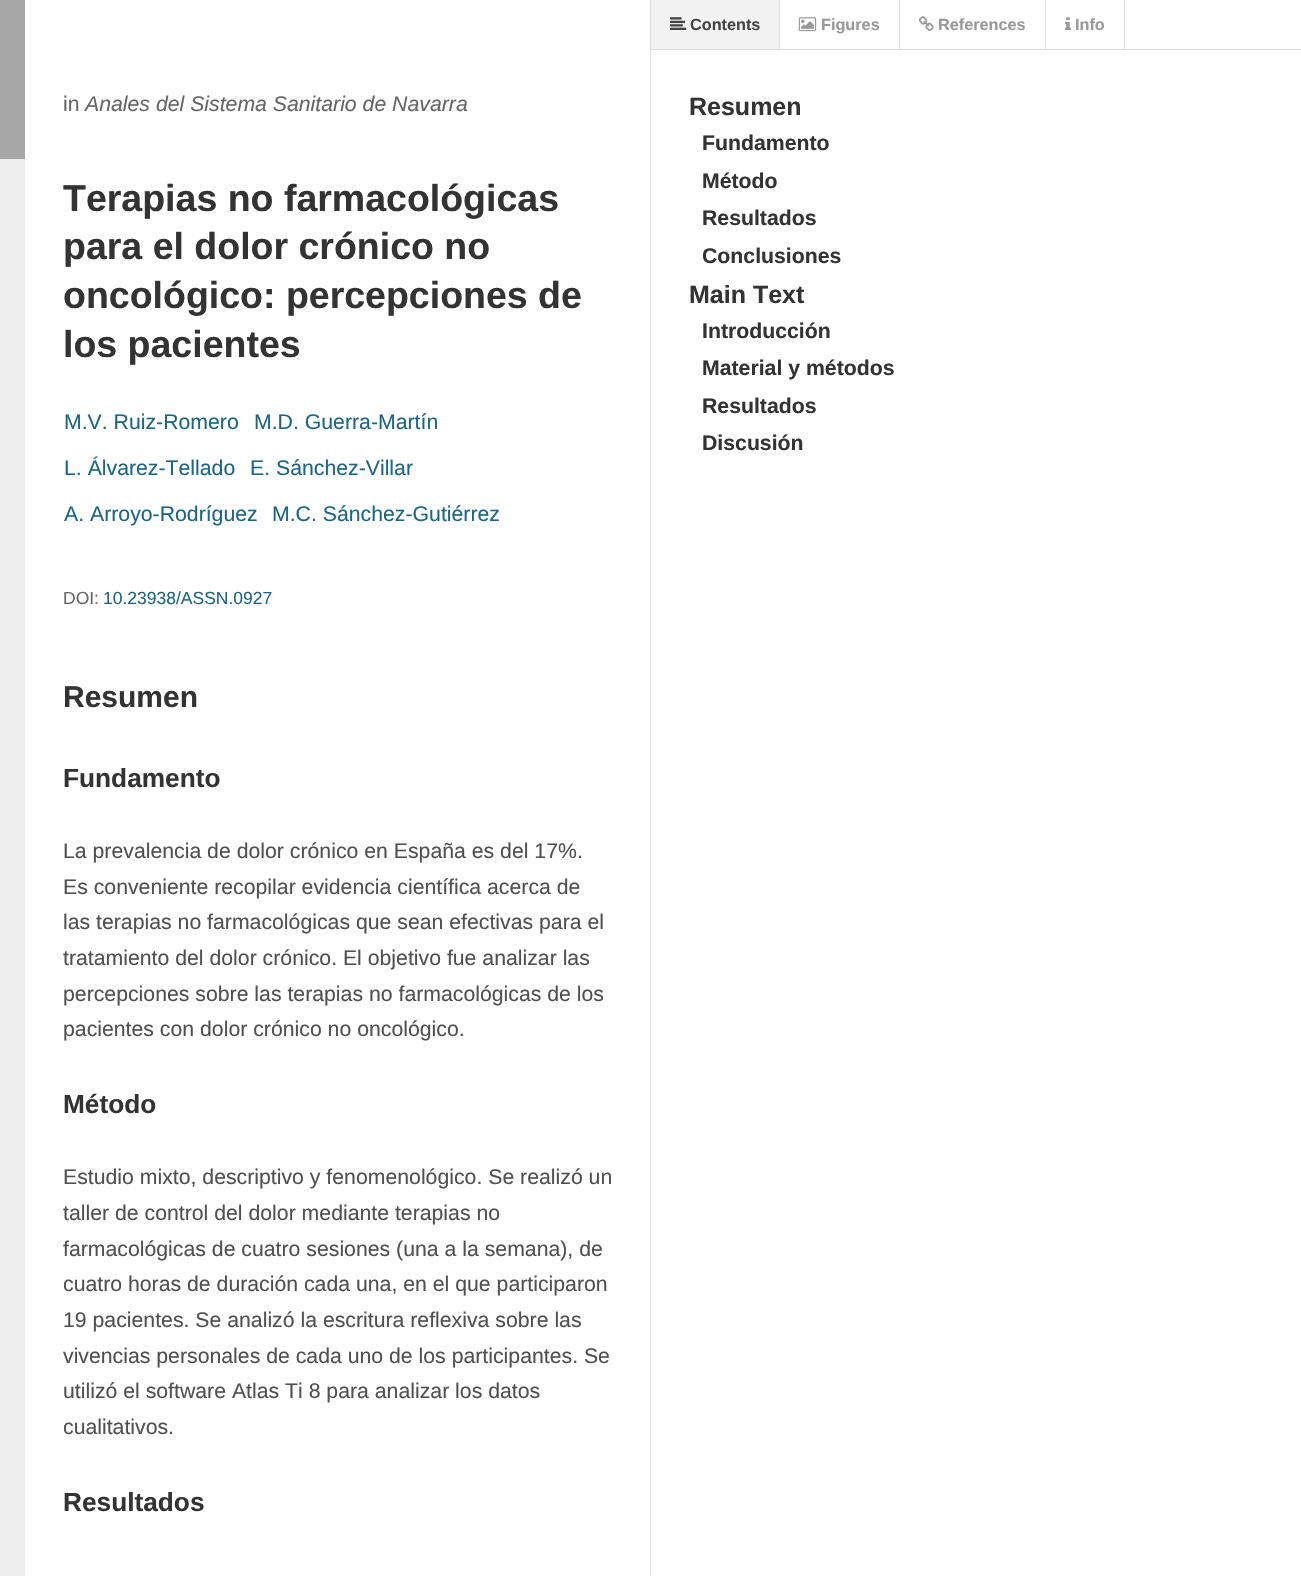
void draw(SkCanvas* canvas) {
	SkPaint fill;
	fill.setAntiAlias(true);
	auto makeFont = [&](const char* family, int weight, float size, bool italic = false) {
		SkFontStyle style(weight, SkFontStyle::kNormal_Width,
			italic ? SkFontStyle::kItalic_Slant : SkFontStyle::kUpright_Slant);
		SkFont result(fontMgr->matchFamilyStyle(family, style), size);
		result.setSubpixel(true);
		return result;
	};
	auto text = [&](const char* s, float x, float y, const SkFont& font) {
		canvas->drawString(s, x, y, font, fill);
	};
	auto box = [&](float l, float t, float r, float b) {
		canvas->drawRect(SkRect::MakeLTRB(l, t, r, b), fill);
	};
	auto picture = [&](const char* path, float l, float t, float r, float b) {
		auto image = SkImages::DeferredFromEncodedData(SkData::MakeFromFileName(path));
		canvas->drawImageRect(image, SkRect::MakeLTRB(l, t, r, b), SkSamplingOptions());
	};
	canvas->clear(0xFFFFFFFF);
	fill.setColor(0xFFDDDDDD);
	box(650, 0, 651, 1576);
	fill.setColor(0xFFEEEEEE);
	box(0, 159, 25, 1576);
	fill.setColor(0xFFA7A7A7);
	box(0, 0, 25, 159);
	fill.setColor(0xFFDDDDDD);
	box(651, 49, 1301, 50);
	fill.setColor(0xFFF2F2F2);
	box(651, 0, 779, 49);
	canvas->save();
	canvas->clipRect(SkRect::MakeLTRB(651, 0, 1301, 49));
	fill.setColor(0xFFDDDDDD);
	canvas->drawPath(SkPathBuilder().moveTo(780, 0).lineTo(780, 54).lineTo(779, 50).lineTo(779, 0).close().detach(), fill);
	canvas->restore();
	picture("image0.png", 670, 17, 687, 30);
	box(899, 0, 900, 49);
	picture("image1.png", 798, 17, 817, 32);
	box(1045, 0, 1046, 49);
	picture("image2.png", 919, 16, 934, 31);
	box(1124, 0, 1125, 49);
	picture("image3.png", 1065, 17, 1071, 30);
	auto font1 = makeFont("Liberation Sans", 400, 21.25f);
	fill.setColor(0xFF666666);
	text("in", 63, 111, font1);
	auto font2 = makeFont("Liberation Sans", 400, 21.25f, true);
	text("Anales del Sistema Sanitario de Navarra", 85, 111, font2);
	auto font3 = makeFont("Liberation Sans", 700, 37.5f);
	fill.setColor(0xFF333333);
	text("Terapias no farmacológicas", 63, 211, font3);
	text("para el dolor crónico no", 63, 259, font3);
	text("oncológico: percepciones de", 63, 308, font3);
	text("los pacientes", 63, 357, font3);
	fill.setColor(0xFF1B6685);
	text("M.V. Ruiz-Romero", 64, 429, font1);
	text("M.D. Guerra-Martín", 254, 429, font1);
	text("L. Álvarez-Tellado", 64, 475, font1);
	text("E. Sánchez-Villar", 250, 475, font1);
	text("A. Arroyo-Rodríguez", 64, 521, font1);
	text("M.C. Sánchez-Gutiérrez", 272, 521, font1);
	auto font4 = makeFont("Liberation Sans", 400, 17.5f);
	fill.setColor(0xFF666666);
	text("DOI:", 63, 604, font4);
	fill.setColor(0xFF1B6685);
	text("10.23938/ASSN.0927", 103, 604, font4);
	auto font5 = makeFont("Liberation Sans", 700, 30);
	fill.setColor(0xFF333333);
	text("Resumen", 63, 707, font5);
	auto font6 = makeFont("Liberation Sans", 700, 26.25f);
	text("Fundamento", 63, 787, font6);
	fill.setColor(0xFF505050);
	text("La prevalencia de dolor crónico en España es del 17%.", 63, 858, font1);
	text("Es conveniente recopilar evidencia científica acerca de", 63, 894, font1);
	text("las terapias no farmacológicas que sean efectivas para el", 63, 929, font1);
	text("tratamiento del dolor crónico. El objetivo fue analizar las", 63, 965, font1);
	text("percepciones sobre las terapias no farmacológicas de los", 63, 1001, font1);
	text("pacientes con dolor crónico no oncológico.", 63, 1036, font1);
	fill.setColor(0xFF333333);
	text("Método", 63, 1113, font6);
	fill.setColor(0xFF505050);
	text("Estudio mixto, descriptivo y fenomenológico. Se realizó un", 63, 1184, font1);
	text("taller de control del dolor mediante terapias no", 63, 1220, font1);
	text("farmacológicas de cuatro sesiones (una a la semana), de", 63, 1256, font1);
	text("cuatro horas de duración cada una, en el que participaron", 63, 1291, font1);
	text("19 pacientes. Se analizó la escritura reflexiva sobre las", 63, 1327, font1);
	text("vivencias personales de cada uno de los participantes. Se", 63, 1363, font1);
	text("utilizó el software Atlas Ti 8 para analizar los datos", 63, 1398, font1);
	text("cualitativos.", 63, 1434, font1);
	fill.setColor(0xFF333333);
	text("Resultados", 63, 1511, font6);
	auto font7 = makeFont("Liberation Sans", 700, 16.25f);
	fill.setColor(0xFF444444);
	text("Contents", 690, 30, font7);
	fill.setColor(0xFF999999);
	text("Figures", 821, 30, font7);
	text("References", 938, 30, font7);
	text("Info", 1075, 30, font7);
	auto font8 = makeFont("Liberation Sans", 700, 25);
	fill.setColor(0xFF333333);
	text("Resumen", 689, 115, font8);
	auto font9 = makeFont("Liberation Sans", 700, 21.25f);
	text("Fundamento", 702, 150, font9);
	text("Método", 702, 188, font9);
	text("Resultados", 702, 225, font9);
	text("Conclusiones", 702, 263, font9);
	text("Main Text", 689, 303, font8);
	text("Introducción", 702, 338, font9);
	text("Material y métodos", 702, 375, font9);
	text("Resultados", 702, 413, font9);
	text("Discusión", 702, 450, font9);
}
